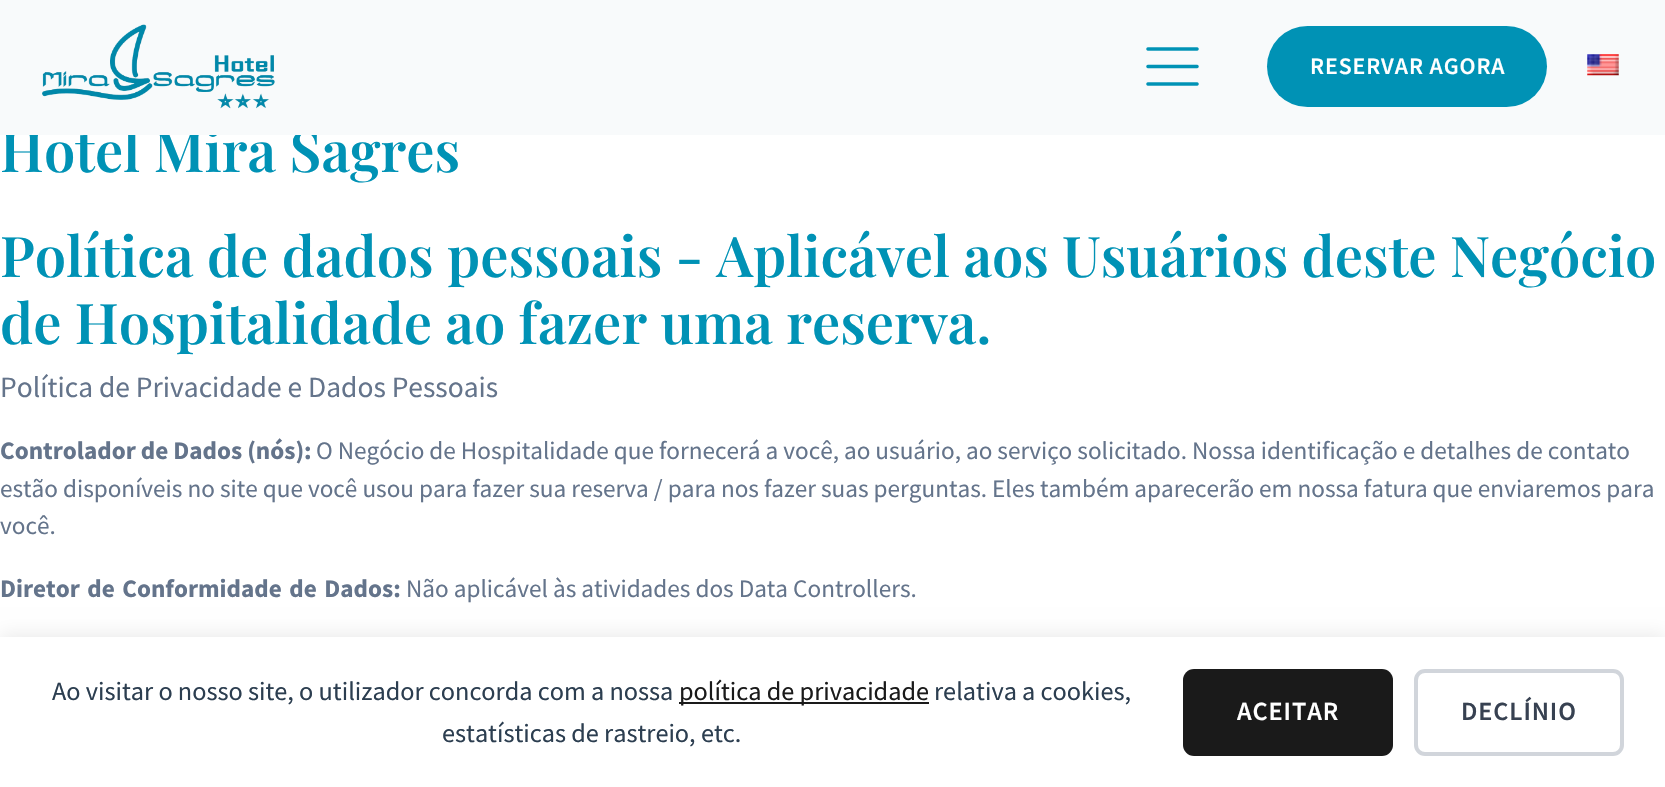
void draw(SkCanvas* canvas) {
	SkPaint fill;
	fill.setAntiAlias(true);
	auto makeFont = [&](const char* family, int weight, float size, bool italic = false) {
		SkFontStyle style(weight, SkFontStyle::kNormal_Width,
			italic ? SkFontStyle::kItalic_Slant : SkFontStyle::kUpright_Slant);
		SkFont result(fontMgr->matchFamilyStyle(family, style), size);
		result.setSubpixel(true);
		return result;
	};
	auto text = [&](const char* s, float x, float y, const SkFont& font) {
		canvas->drawString(s, x, y, font, fill);
	};
	auto spacedText = [&](const char* s, float x, float y, const SkFont& font, const SkPaint& ink, float letter, float word) {
		std::vector<SkGlyphID> glyphs(font.countText(s, strlen(s), SkTextEncoding::kUTF8));
		std::vector<float> xs(glyphs.size());
		font.textToGlyphs(s, strlen(s), SkTextEncoding::kUTF8, glyphs);
		font.getXPos(glyphs, xs, x);
		float extra = 0;
		for (size_t i = 0; i < glyphs.size(); i++) {
			xs[i] += extra;
			extra += letter + word * (glyphs[i] == font.unicharToGlyph(' '));
		}
		canvas->drawTextBlob(SkTextBlob::MakeFromPosHGlyphs(glyphs, xs, y, font), 0, 0, ink);
	};
	auto box = [&](float l, float t, float r, float b) {
		canvas->drawRect(SkRect::MakeLTRB(l, t, r, b), fill);
	};
	auto roundBox = [&](float l, float t, float r, float b, float radius) {
		canvas->drawRoundRect(SkRect::MakeLTRB(l, t, r, b), radius, radius, fill);
	};
	auto picture = [&](const char* path, float l, float t, float r, float b) {
		auto image = SkImages::DeferredFromEncodedData(SkData::MakeFromFileName(path));
		canvas->drawImageRect(image, SkRect::MakeLTRB(l, t, r, b), SkSamplingOptions());
	};
	canvas->clear(0xFFFFFFFF);
	fill.setColor(0x14000000);
	fill.setMaskFilter(SkMaskFilter::MakeBlur(kNormal_SkBlurStyle, 9));
	canvas->drawRect(SkRect::MakeLTRB(0, 634, 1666, 784), fill);
	fill.setMaskFilter(nullptr);
	fill.setColor(0xFFFFFFFF);
	box(0, 637, 1665, 787);
	fill.setColor(0xFF1A1A1A);
	box(679, 702, 929, 704);
	roundBox(1183, 669, 1393, 756, 11);
	fill.setStyle(SkPaint::kStroke_Style);
	fill.setStrokeWidth(4);
	fill.setColor(0xFFD1D5DB);
	canvas->drawRoundRect(SkRect::MakeLTRB(1416, 671, 1622, 754), 9, 9, fill);
	auto font1 = makeFont("Playfair Display", 600, 56);
	fill.setStyle(SkPaint::kFill_Style);
	fill.setColor(0xFF0092B5);
	text("Hotel Mira Sagres", 0, 172, font1);
	fill.setColor(0xFFF8FAFB);
	box(0, 0, 1665, 135);
	picture("image2.png", 1587, 54, 1619, 76);
	fill.setColor(0xFF0092B5);
	roundBox(1267, 26, 1547, 107, 40.5f);
	auto font2 = makeFont("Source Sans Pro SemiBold", 600, 23.75f);
	fill.setColor(0xFFFFFFFF);
	spacedText("RESERVAR AGORA", 1310, 74, font2, fill, 0.9f, 0);
	picture("image1.png", 1146, 47, 1199, 86);
	picture("image0.png", 42, 24, 275, 109);
	fill.setColor(0xFF0092B5);
	text("Política de dados pessoais - Aplicável aos Usuários deste Negócio", 0, 277, font1);
	text("de Hospitalidade ao fazer uma reserva.", 0, 344, font1);
	auto font3 = makeFont("Source Sans Pro", 400, 29.5f);
	fill.setColor(0xFF64748B);
	text("Política de Privacidade e Dados Pessoais", 0, 397, font3);
	auto font4 = makeFont("Source Sans Pro", 700, 25.2f);
	text("Controlador de Dados (nós):", 0, 459, font4);
	auto font5 = makeFont("Source Sans Pro", 400, 25.2f);
	text("O Negócio de Hospitalidade que fornecerá a você, ao usuário, ao serviço solicitado. Nossa identificação e detalhes de contato", 316, 459, font5);
	text("estão disponíveis no site que você usou para fazer sua reserva / para nos fazer suas perguntas. Eles também aparecerão em nossa fatura que enviaremos para", 0, 497, font5);
	text("você.", 0, 534, font5);
	spacedText("Diretor de Conformidade de Dados:", 0, 597, font4, fill, 0, 2.5f);
	text("Não aplicável às atividades dos Data Controllers.", 406, 597, font5);
	auto font6 = makeFont("Source Sans Pro", 400, 26.25f);
	fill.setColor(0xFF2C3E50);
	text("Ao visitar o nosso site, o utilizador concorda com a nossa", 52, 700, font6);
	fill.setColor(0xFF1A1A1A);
	text("política de privacidade", 679, 700, font6);
	fill.setColor(0xFF2C3E50);
	text("relativa a cookies,", 934, 700, font6);
	text("estatísticas de rastreio, etc.", 442, 742, font6);
	auto font7 = makeFont("Source Sans Pro SemiBold", 600, 26.25f);
	fill.setColor(0xFFFFFFFF);
	spacedText("ACEITAR", 1237, 720, font7, fill, 0.9f, 0);
	fill.setColor(0xFF374151);
	spacedText("DECLÍNIO", 1461, 720, font7, fill, 0.9f, 0);
}
